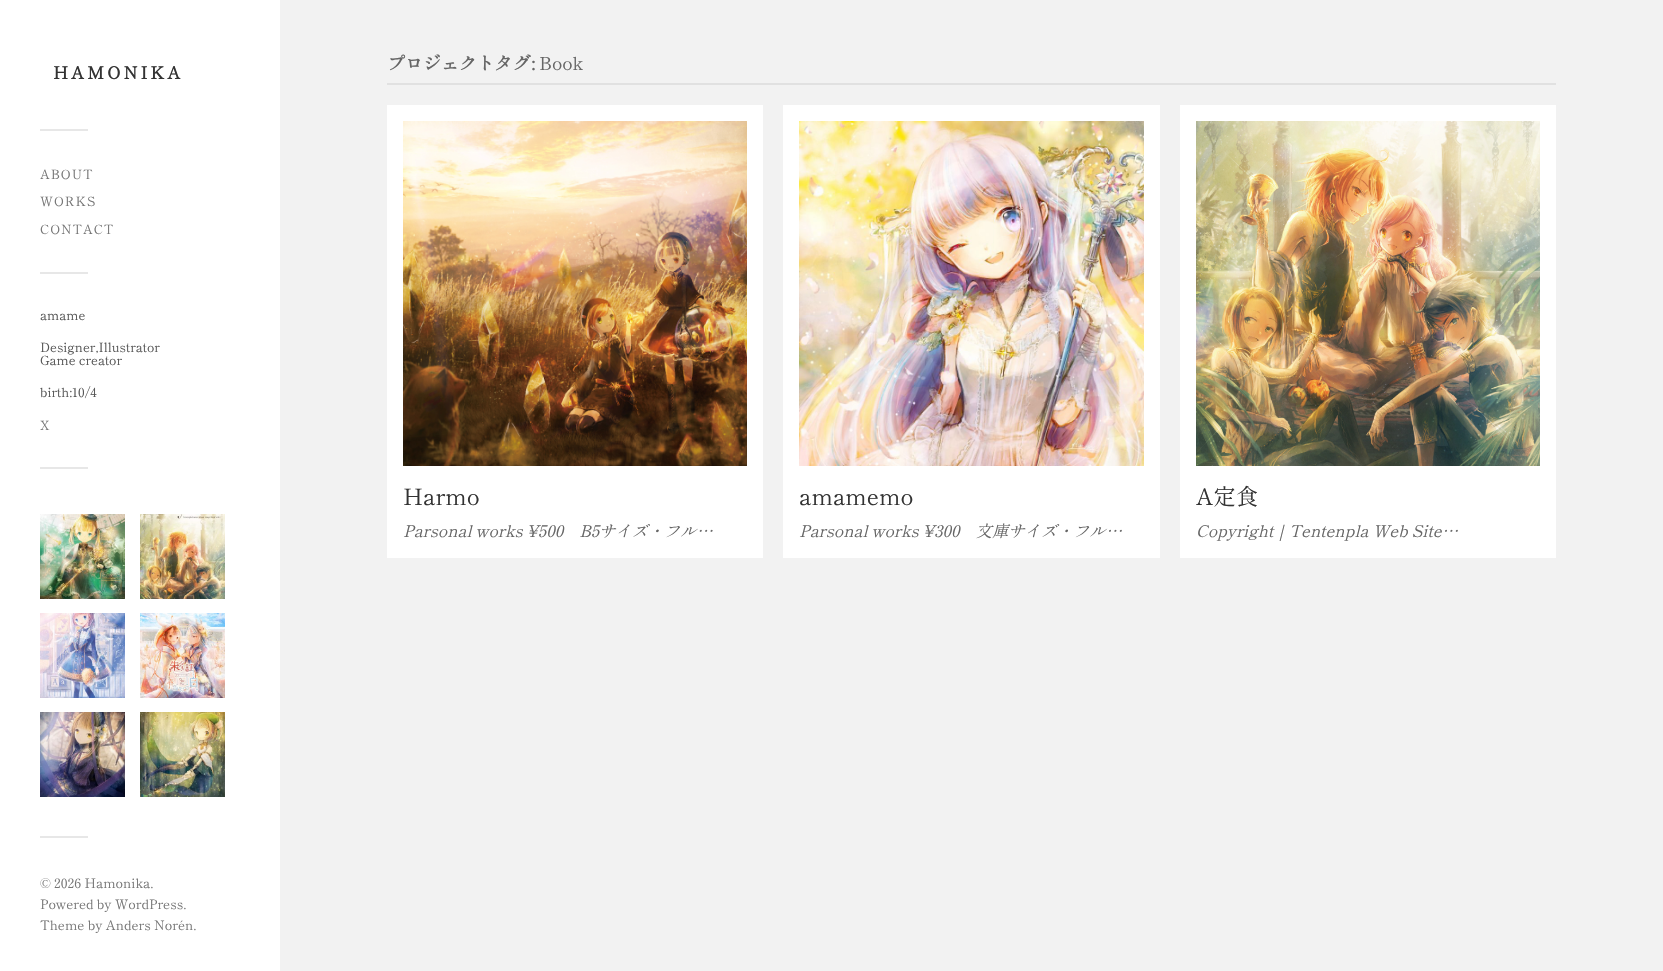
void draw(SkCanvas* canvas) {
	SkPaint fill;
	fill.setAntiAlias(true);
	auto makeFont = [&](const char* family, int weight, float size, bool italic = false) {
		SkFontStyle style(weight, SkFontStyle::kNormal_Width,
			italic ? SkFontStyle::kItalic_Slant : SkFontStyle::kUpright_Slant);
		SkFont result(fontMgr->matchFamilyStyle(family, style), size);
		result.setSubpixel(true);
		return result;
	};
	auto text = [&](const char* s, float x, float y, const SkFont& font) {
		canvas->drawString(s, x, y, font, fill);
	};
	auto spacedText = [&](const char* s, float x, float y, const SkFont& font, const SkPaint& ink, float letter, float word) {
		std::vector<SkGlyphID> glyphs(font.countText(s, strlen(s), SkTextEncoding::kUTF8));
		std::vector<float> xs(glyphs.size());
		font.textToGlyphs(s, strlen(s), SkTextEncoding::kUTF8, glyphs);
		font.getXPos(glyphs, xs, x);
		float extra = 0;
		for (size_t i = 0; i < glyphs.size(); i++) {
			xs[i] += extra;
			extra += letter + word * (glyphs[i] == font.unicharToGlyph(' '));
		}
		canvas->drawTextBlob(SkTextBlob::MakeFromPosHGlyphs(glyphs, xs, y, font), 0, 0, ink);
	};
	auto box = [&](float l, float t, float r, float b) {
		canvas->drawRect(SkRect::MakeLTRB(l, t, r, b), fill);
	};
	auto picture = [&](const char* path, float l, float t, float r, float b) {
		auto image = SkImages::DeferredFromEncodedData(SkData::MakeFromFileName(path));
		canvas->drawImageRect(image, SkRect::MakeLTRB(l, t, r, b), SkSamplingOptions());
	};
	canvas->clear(0xFFF2F2F2);
	fill.setColor(0xFFFFFFFF);
	box(0, 0, 280, 971);
	fill.setColor(0xFFE7E7E7);
	box(40, 129, 88, 131);
	box(40, 272, 88, 274);
	box(40, 467, 88, 469);
	picture("image0.png", 40, 514, 125, 599);
	picture("image1.png", 140, 514, 225, 599);
	picture("image2.png", 40, 613, 125, 698);
	picture("image3.png", 140, 613, 225, 698);
	picture("image4.png", 40, 712, 125, 797);
	picture("image5.png", 140, 712, 225, 797);
	box(40, 836, 88, 838);
	fill.setColor(0xFFE1E1E1);
	box(387, 83, 1556, 85);
	fill.setColor(0xFFFFFFFF);
	box(387, 105, 763, 558);
	picture("image6.png", 403, 121, 747, 466);
	box(783, 105, 1160, 558);
	picture("image7.png", 799, 121, 1144, 466);
	box(1180, 105, 1556, 558);
	picture("image8.png", 1196, 121, 1540, 466);
	auto font1 = makeFont("Shippori Mincho", 700, 17);
	fill.setColor(0xFF333333);
	spacedText("HAMONIKA", 53, 79, font1, fill, 3, 0);
	auto font2 = makeFont("Shippori Mincho", 400, 12.75f);
	fill.setColor(0xFF767676);
	spacedText("ABOUT", 40, 179, font2, fill, 1, 0);
	spacedText("WORKS", 40, 206, font2, fill, 1, 0);
	spacedText("CONTACT", 40, 234, font2, fill, 1, 0);
	fill.setColor(0xFF555555);
	text("amame", 40, 320, font2);
	text("Designer,Illustrator", 40, 352, font2);
	text("Game creator", 40, 365, font2);
	text("birth:10/4", 40, 397, font2);
	fill.setColor(0xFF767676);
	text("X", 40, 430, font2);
	auto font3 = makeFont("Shippori Mincho", 400, 13);
	text("© 2026 Hamonika.", 40, 888, font3);
	text("Powered by WordPress.", 40, 909, font3);
	text("Theme by Anders Norén.", 40, 930, font3);
	auto font4 = makeFont("Shippori Mincho", 700, 18);
	fill.setColor(0xFF666666);
	text("プロジェクトタグ:", 387, 70, font4);
	auto font5 = makeFont("Shippori Mincho", 400, 18);
	text("Book", 539, 70, font5);
	auto font6 = makeFont("Shippori Mincho", 400, 22.5f);
	fill.setColor(0xFF333333);
	text("Harmo", 403, 505, font6);
	auto font7 = makeFont("Shippori Mincho", 400, 16.25f, true);
	fill.setColor(0xFF666666);
	text("Parsonal works ¥500　B5サイズ・フル…", 403, 537, font7);
	fill.setColor(0xFF333333);
	text("amamemo", 799, 505, font6);
	fill.setColor(0xFF666666);
	text("Parsonal works ¥300　文庫サイズ・フル…", 799, 537, font7);
	fill.setColor(0xFF333333);
	text("A定食", 1196, 505, font6);
	fill.setColor(0xFF666666);
	text("Copyright", 1196, 537, font7);
	auto font8 = makeFont("WenQuanYi Zen Hei", 500, 16.25f, true);
	text("｜", 1273, 537, font8);
	text("Tentenpla Web Site…", 1289, 537, font7);
}
